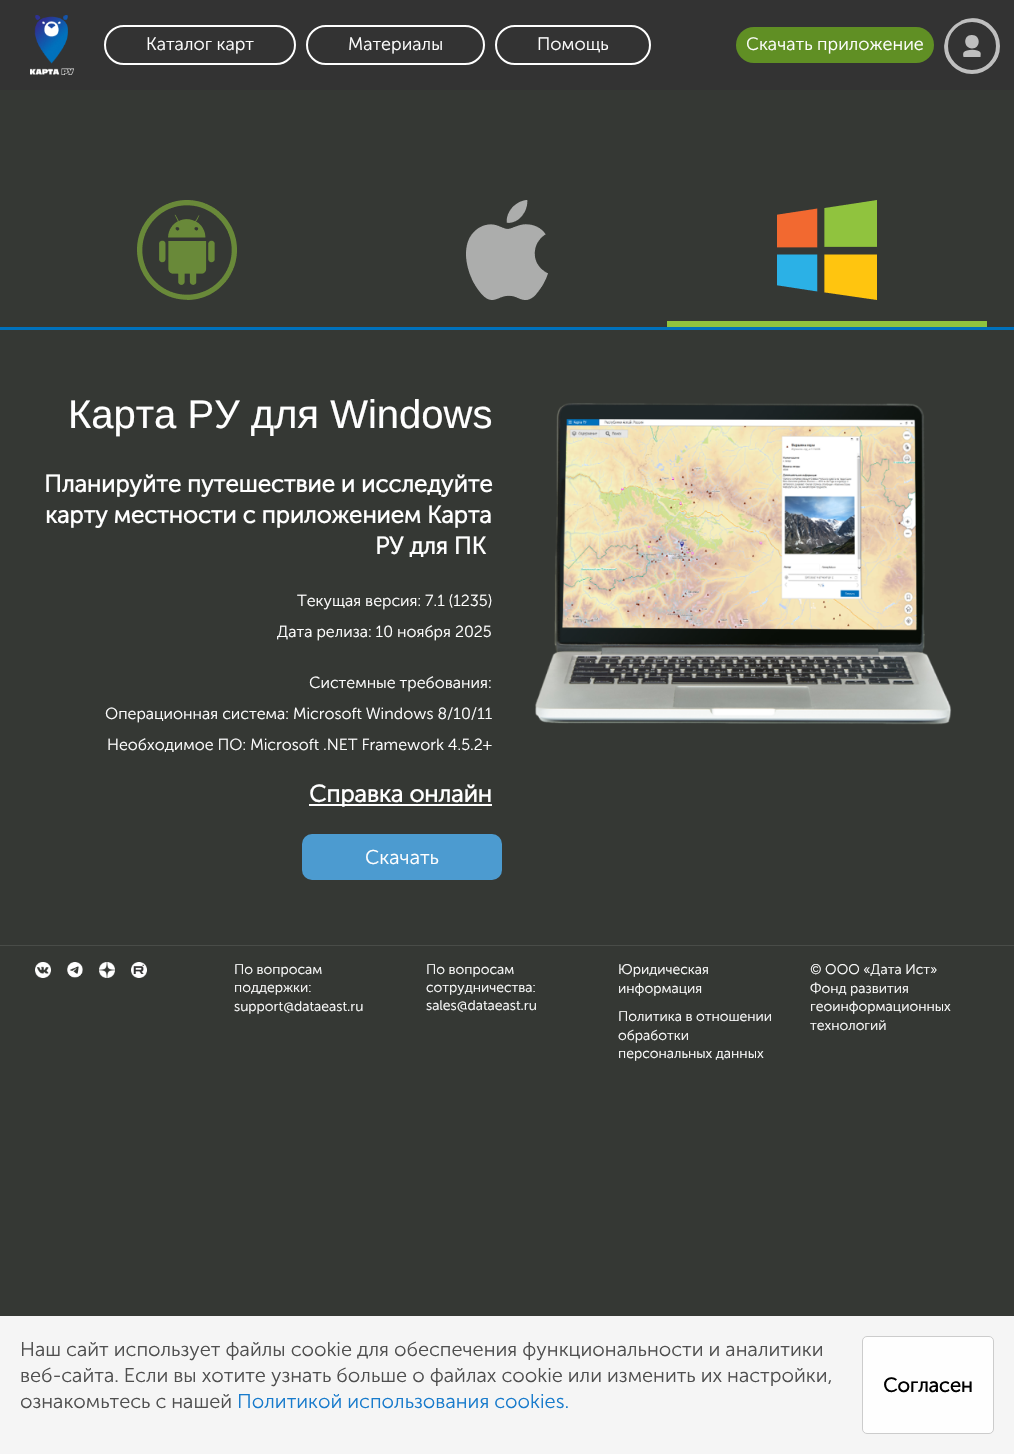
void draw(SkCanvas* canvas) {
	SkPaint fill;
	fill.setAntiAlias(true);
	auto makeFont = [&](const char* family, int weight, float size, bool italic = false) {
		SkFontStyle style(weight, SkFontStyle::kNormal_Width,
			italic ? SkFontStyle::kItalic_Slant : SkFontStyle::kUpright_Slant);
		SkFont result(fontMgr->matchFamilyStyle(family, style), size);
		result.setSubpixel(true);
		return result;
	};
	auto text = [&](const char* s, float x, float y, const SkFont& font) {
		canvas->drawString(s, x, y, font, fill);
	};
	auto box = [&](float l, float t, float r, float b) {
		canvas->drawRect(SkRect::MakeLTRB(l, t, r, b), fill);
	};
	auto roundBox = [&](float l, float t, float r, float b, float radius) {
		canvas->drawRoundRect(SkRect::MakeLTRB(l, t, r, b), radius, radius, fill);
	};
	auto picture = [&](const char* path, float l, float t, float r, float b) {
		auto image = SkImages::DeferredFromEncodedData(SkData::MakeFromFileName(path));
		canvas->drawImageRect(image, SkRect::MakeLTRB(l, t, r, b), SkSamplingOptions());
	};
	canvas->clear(0xFF353834);
	fill.setColor(0xFF333333);
	box(0, 0, 1014, 90);
	picture("image0.png", 30, 15, 74, 75);
	fill.setStyle(SkPaint::kStroke_Style);
	fill.setStrokeWidth(2);
	fill.setColor(0xFFFFFFFF);
	canvas->drawRoundRect(SkRect::MakeLTRB(105, 26, 295, 64), 19, 19, fill);
	canvas->drawRoundRect(SkRect::MakeLTRB(307, 26, 484, 64), 19, 19, fill);
	canvas->drawRoundRect(SkRect::MakeLTRB(496, 26, 650, 64), 19, 19, fill);
	fill.setStyle(SkPaint::kFill_Style);
	fill.setColor(0xFF608F24);
	roundBox(736, 27, 934, 63, 18);
	canvas->save();
	canvas->clipPath(SkPathBuilder().moveTo(974, 18).lineTo(994, 18).cubicTo(1010.5f, 18, 1024, 31.5f, 1024, 48).cubicTo(1024, 64.5f, 1010.5f, 78, 994, 78).lineTo(974, 78).cubicTo(957.5f, 78, 944, 64.5f, 944, 48).cubicTo(944, 31.5f, 957.5f, 18, 974, 18).close().detach(), true);
	fill.setStyle(SkPaint::kStroke_Style);
	fill.setStrokeWidth(4);
	fill.setColor(0xFFBFBFBF);
	canvas->drawCircle(972, 46, 26, fill);
	canvas->restore();
	fill.setStyle(SkPaint::kFill_Style);
	canvas->drawPath(SkPathBuilder().moveTo(972, 48.5f).cubicTo(963, 48, 963, 34.5f, 972, 35).cubicTo(981, 35, 981, 48.5f, 972, 48.5f).close().moveTo(963.5f, 57).cubicTo(963, 55.5f, 963, 53.5f, 963.5f, 52.5f).cubicTo(966, 49, 978, 48.5f, 980.5f, 52.5f).cubicTo(981, 54, 980.5f, 55.5f, 980.5f, 57).close().detach(), fill);
	fill.setColor(0xFF0071BC);
	box(0, 327, 1014, 330);
	picture("image1.png", 137, 200, 237, 300);
	picture("image2.png", 466, 200, 548, 300);
	fill.setColor(0xFF90C33E);
	box(667, 321, 987, 327);
	picture("image3.png", 777, 200, 877, 300);
	fill.setColor(0xFFFFFFFF);
	box(309, 804, 492, 806);
	fill.setColor(0xFF4C9BD0);
	roundBox(302, 834, 502, 880, 10);
	picture("image4.png", 535, 403, 952, 725);
	fill.setColor(0xFF494C48);
	box(0, 945, 1014, 946);
	picture("image5.png", 35, 962, 51, 978);
	picture("image6.png", 67, 962, 83, 978);
	picture("image7.png", 99, 962, 115, 978);
	picture("image8.png", 131, 962, 147, 978);
	fill.setColor(0xFFF5F5F5);
	box(0, 1316, 1014, 1454);
	fill.setColor(0xFFFEFEFE);
	canvas->drawRoundRect(SkRect::MakeLTRB(862.5f, 1336.5f, 993.5f, 1433.5f), 4.5f, 4.5f, fill);
	fill.setStyle(SkPaint::kStroke_Style);
	fill.setStrokeWidth(1);
	fill.setColor(0xFFCCCCCC);
	canvas->drawRoundRect(SkRect::MakeLTRB(862.5f, 1336.5f, 993.5f, 1433.5f), 4.5f, 4.5f, fill);
	auto font1 = makeFont("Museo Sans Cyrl", 300, 18);
	fill.setStyle(SkPaint::kFill_Style);
	fill.setColor(0xFFFFFFFF);
	text("Каталог карт", 146, 50, font1);
	text("Материалы", 348, 50, font1);
	text("Помощь", 537, 50, font1);
	text("Скачать приложение", 746, 50, font1);
	auto font2 = makeFont("Liberation Sans", 400, 40);
	text("Карта РУ для Windows", 68, 428, font2);
	auto font3 = makeFont("Museo Sans Cyrl", 700, 24);
	text("Планируйте путешествие и исследуйте", 44, 492, font3);
	text("карту местности с приложением Карта", 45, 523, font3);
	text("РУ для ПК", 375, 554, font3);
	auto font4 = makeFont("Museo Sans Cyrl", 300, 16);
	text("Текущая версия: 7.1 (1235)", 297, 606, font4);
	text("Дата релиза: 10 ноября 2025", 277, 637, font4);
	text("Системные требования:", 309, 688, font4);
	text("Операционная система: Microsoft Windows 8/10/11", 105, 719, font4);
	text("Необходимое ПО: Microsoft .NET Framework 4.5.2+", 107, 750, font4);
	text("Справка онлайн", 309, 802, font3);
	auto font5 = makeFont("Museo Sans Cyrl", 300, 20);
	text("Скачать", 365, 864, font5);
	auto font6 = makeFont("Museo Sans Cyrl", 300, 14);
	text("По вопросам", 234, 974, font6);
	text("поддержки:", 234, 992, font6);
	text("support@dataeast.ru", 234, 1011, font6);
	text("По вопросам", 426, 974, font6);
	text("сотрудничества:", 426, 992, font6);
	text("sales@dataeast.ru", 426, 1010, font6);
	text("Юридическая", 618, 974, font6);
	text("информация", 618, 993, font6);
	text("Политика в отношении", 618, 1021, font6);
	text("обработки", 618, 1040, font6);
	text("персональных данных", 618, 1058, font6);
	text("© ООО «Дата Ист»", 810, 974, font6);
	text("Фонд развития", 810, 993, font6);
	text("геоинформационных", 810, 1011, font6);
	text("технологий", 810, 1030, font6);
	fill.setColor(0xFF4F4F4F);
	text("Наш сайт использует файлы cookie для обеспечения функциональности и аналитики", 20, 1356, font5);
	text("веб-сайта. Если вы хотите узнать больше о файлах cookie или изменить их настройки,", 20, 1382, font5);
	text("ознакомьтесь с нашей", 20, 1408, font5);
	fill.setColor(0xFF187BCC);
	text("Политикой использования cookies.", 237, 1408, font5);
	auto font7 = makeFont("Museo Sans Cyrl", 700, 20);
	fill.setColor(0xFF000000);
	text("Согласен", 883, 1392, font7);
}
